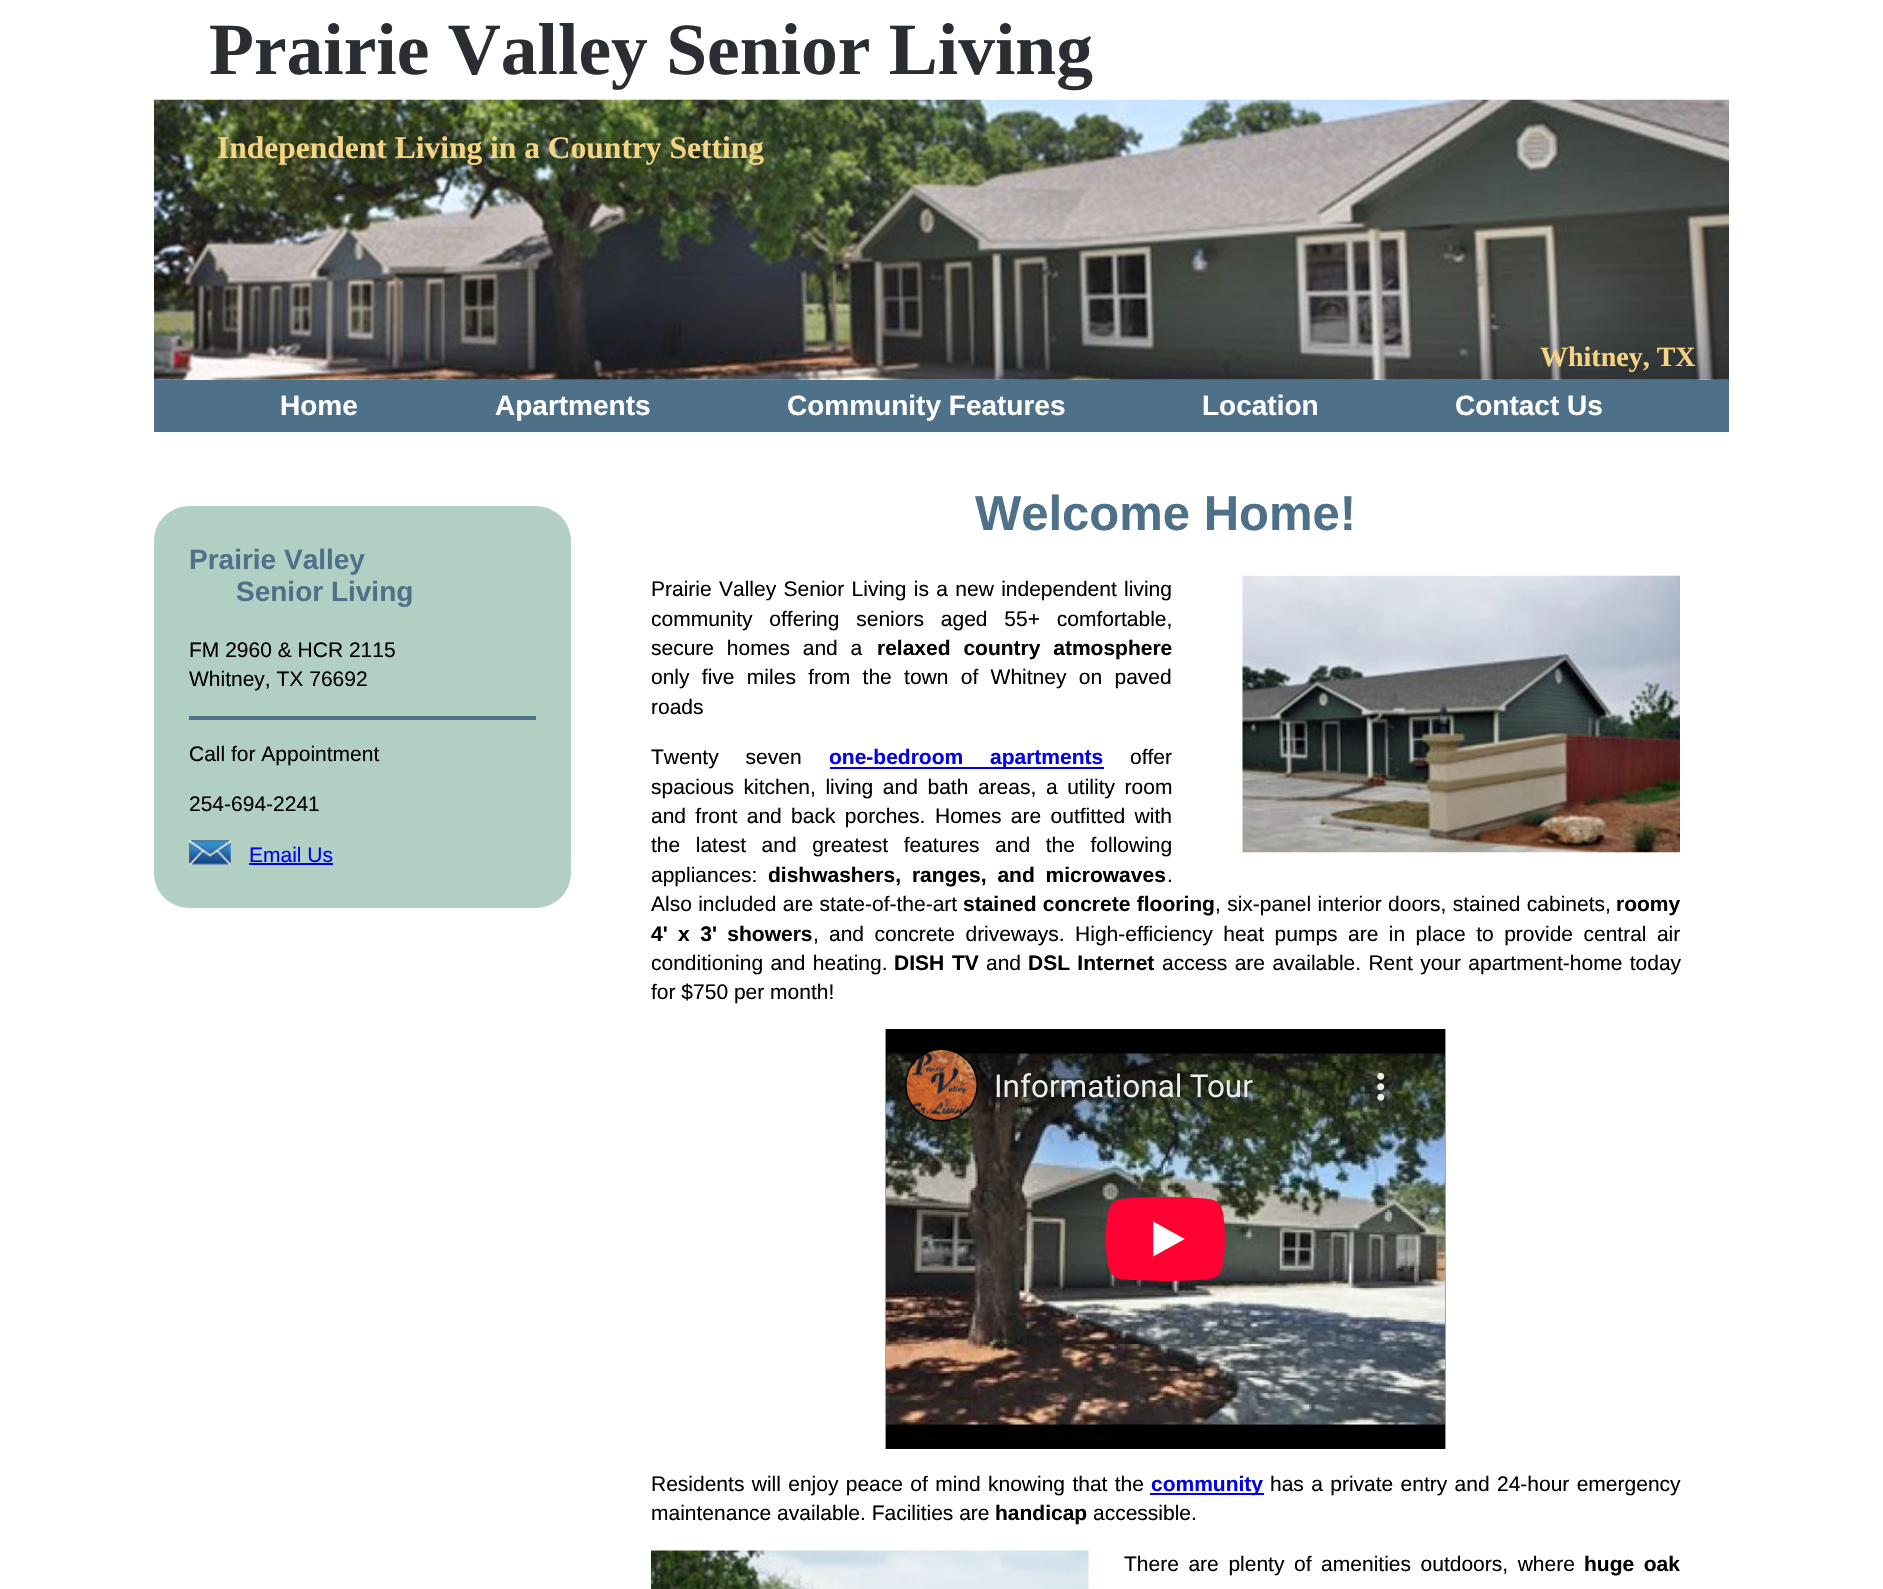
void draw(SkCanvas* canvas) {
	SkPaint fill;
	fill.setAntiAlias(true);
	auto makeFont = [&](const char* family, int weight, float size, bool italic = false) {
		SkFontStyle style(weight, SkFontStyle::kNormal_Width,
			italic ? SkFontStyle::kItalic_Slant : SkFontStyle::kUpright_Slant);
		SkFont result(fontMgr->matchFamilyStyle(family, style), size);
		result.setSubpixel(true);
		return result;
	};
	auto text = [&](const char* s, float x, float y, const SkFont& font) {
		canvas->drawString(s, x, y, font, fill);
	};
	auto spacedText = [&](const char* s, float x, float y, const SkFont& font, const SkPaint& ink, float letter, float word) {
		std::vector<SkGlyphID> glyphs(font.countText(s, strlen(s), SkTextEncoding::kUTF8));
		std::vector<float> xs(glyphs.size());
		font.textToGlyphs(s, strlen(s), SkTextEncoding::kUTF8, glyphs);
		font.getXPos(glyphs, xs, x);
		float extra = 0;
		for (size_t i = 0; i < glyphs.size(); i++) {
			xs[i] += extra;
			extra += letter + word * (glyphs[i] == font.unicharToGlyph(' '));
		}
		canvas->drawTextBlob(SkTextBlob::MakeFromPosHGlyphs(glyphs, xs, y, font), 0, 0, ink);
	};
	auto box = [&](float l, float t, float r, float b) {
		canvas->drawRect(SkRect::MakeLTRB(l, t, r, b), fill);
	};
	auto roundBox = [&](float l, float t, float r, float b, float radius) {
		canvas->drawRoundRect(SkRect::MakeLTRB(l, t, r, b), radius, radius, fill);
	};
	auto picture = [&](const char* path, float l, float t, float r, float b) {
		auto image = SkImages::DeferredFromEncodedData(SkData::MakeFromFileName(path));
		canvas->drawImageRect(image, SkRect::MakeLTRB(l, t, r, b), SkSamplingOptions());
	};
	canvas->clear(0xFFFFFFFF);
	picture("image0.png", 154, 99, 1729, 380);
	fill.setColor(0xFF4E7089);
	box(154, 380, 1729, 432);
	fill.setColor(0xFFB2CFC4);
	roundBox(154, 506, 571, 908, 35);
	fill.setColor(0xFF4E7089);
	box(189, 716, 536, 720);
	picture("image1.png", 189, 840, 231, 865);
	fill.setColor(0xFF0000EE);
	box(249, 863, 333, 865);
	picture("image2.png", 1242, 575, 1680, 853);
	box(830, 767, 1104, 769);
	picture("image3.png", 885, 1029, 1446, 1449);
	box(1150, 1493, 1264, 1495);
	picture("image4.png", 651, 1550, 1089, 1589);
	auto font1 = makeFont("Liberation Serif", 700, 73.5f);
	fill.setColor(0xFF2A2D32);
	text("Prairie Valley Senior Living", 209, 74, font1);
	auto font2 = makeFont("Liberation Serif", 700, 31.5f);
	fill.setColor(0xFFF3D583);
	text("Independent Living in a Country Setting", 217, 158, font2);
	auto font3 = makeFont("Liberation Serif", 700, 28);
	text("Whitney, TX", 1540, 366, font3);
	auto font4 = makeFont("Liberation Sans", 700, 28);
	fill.setColor(0xFFFFFFFF);
	text("Home", 280, 415, font4);
	text("Apartments", 495, 415, font4);
	text("Community Features", 787, 415, font4);
	text("Location", 1202, 415, font4);
	text("Contact Us", 1455, 415, font4);
	fill.setColor(0xFF4E7089);
	text("Prairie Valley", 189, 569, font4);
	text("Senior Living", 236, 601, font4);
	auto font5 = makeFont("Liberation Sans", 400, 21);
	fill.setColor(0xFF000000);
	text("FM 2960 & HCR 2115", 189, 657, font5);
	text("Whitney, TX 76692", 189, 686, font5);
	text("Call for Appointment", 189, 761, font5);
	text("254-694-2241", 189, 811, font5);
	fill.setColor(0xFF0000EE);
	text("Email Us", 249, 862, font5);
	auto font6 = makeFont("Liberation Sans", 700, 49);
	fill.setColor(0xFF4E7089);
	text("Welcome Home!", 975, 530, font6);
	fill.setColor(0xFF000000);
	spacedText("Prairie Valley Senior Living is a new independent living", 651, 596, font5, fill, 0, 1.5f);
	spacedText("community offering seniors aged 55+ comfortable,", 651, 626, font5, fill, 0, 11);
	spacedText("secure homes and a", 651, 655, font5, fill, 0, 7);
	auto font7 = makeFont("Liberation Sans", 700, 21);
	spacedText("relaxed country atmosphere", 877, 655, font7, fill, 0, 7);
	spacedText("only five miles from the town of Whitney on paved", 651, 684, font5, fill, 0, 6.5f);
	text("roads", 651, 714, font5);
	spacedText("Twenty seven", 651, 764, font5, fill, 0, 21);
	fill.setColor(0xFF0000EE);
	spacedText("one-bedroom apartments", 829, 764, font7, fill, 0, 21);
	fill.setColor(0xFF000000);
	text("offer", 1130, 764, font5);
	spacedText("spacious kitchen, living and bath areas, a utility room", 651, 794, font5, fill, 0, 3.75f);
	spacedText("and front and back porches.", 651, 823, font5, fill, 0, 3.5f);
	spacedText("Homes are outfitted with", 935, 823, font5, fill, 0, 3.5f);
	spacedText("the latest and greatest features and the following", 651, 852, font5, fill, 0, 9.75f);
	text("appliances:", 651, 882, font5);
	spacedText("dishwashers, ranges, and microwaves", 768, 882, font7, fill, 0, 5);
	text(".", 1167, 882, font5);
	spacedText("Also included are state-of-the-art", 651, 911, font5, fill, 0, 0.5f);
	spacedText("stained concrete flooring", 963, 911, font7, fill, 0, 0.5f);
	spacedText(", six-panel interior doors, stained cabinets,", 1215, 911, font5, fill, 0, 0.5f);
	text("roomy", 1616, 911, font7);
	spacedText("4' x 3' showers", 651, 941, font7, fill, 0, 4.6f);
	text(",", 813, 941, font5);
	spacedText("and concrete driveways. High-efficiency heat pumps are in place to provide central air", 829, 941, font5, fill, 0, 4.6f);
	spacedText("conditioning and heating.", 651, 970, font5, fill, 0, 1.5f);
	text("DISH", 894, 970, font7);
	text("TV", 952, 970, font7);
	text("and", 986, 970, font5);
	spacedText("DSL Internet", 1028, 970, font7, fill, 0, 1.5f);
	spacedText("access are available. Rent your apartment-home today", 1162, 970, font5, fill, 0, 1.5f);
	text("for $750 per month!", 651, 999, font5);
	spacedText("Residents will enjoy peace of mind knowing that the", 651, 1491, font5, fill, 0, 1.5f);
	fill.setColor(0xFF0000EE);
	text("community", 1151, 1491, font7);
	fill.setColor(0xFF000000);
	spacedText("has a private entry and 24-hour emergency", 1270, 1491, font5, fill, 0, 1.5f);
	text("maintenance available. Facilities are", 651, 1520, font5);
	text("handicap", 995, 1520, font7);
	text("accessible.", 1093, 1520, font5);
	spacedText("There are plenty of amenities outdoors, where", 1124, 1571, font5, fill, 0, 3.75f);
	spacedText("huge oak", 1584, 1571, font7, fill, 0, 3.75f);
}
